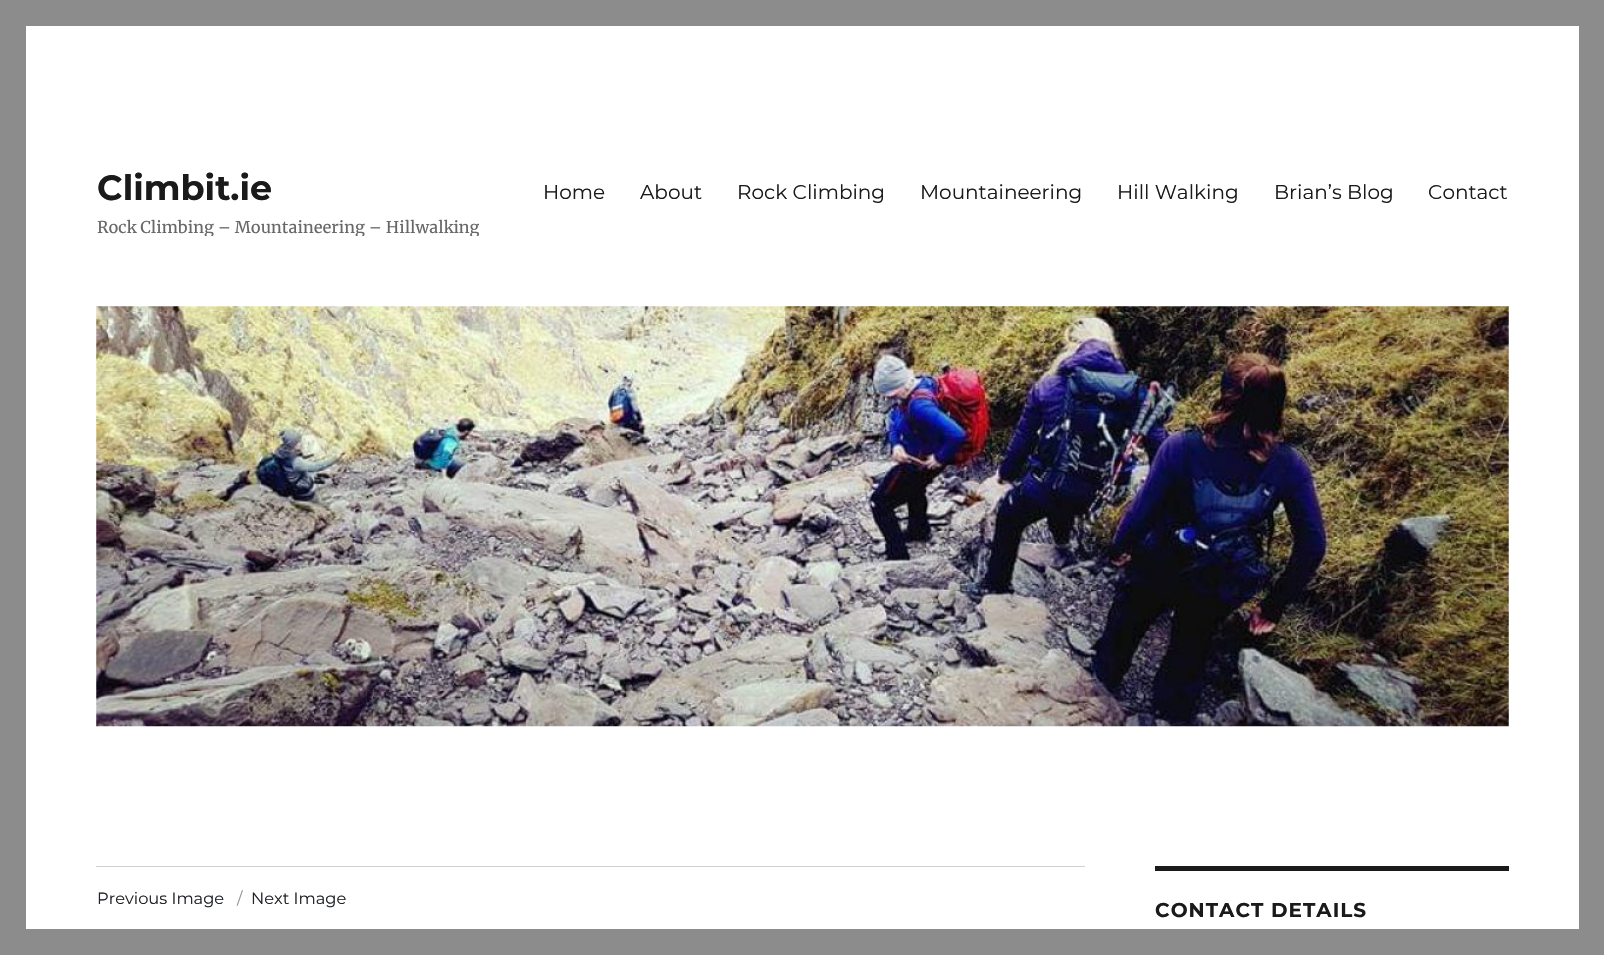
void draw(SkCanvas* canvas) {
	SkPaint fill;
	fill.setAntiAlias(true);
	auto makeFont = [&](const char* family, int weight, float size, bool italic = false) {
		SkFontStyle style(weight, SkFontStyle::kNormal_Width,
			italic ? SkFontStyle::kItalic_Slant : SkFontStyle::kUpright_Slant);
		SkFont result(fontMgr->matchFamilyStyle(family, style), size);
		result.setSubpixel(true);
		return result;
	};
	auto text = [&](const char* s, float x, float y, const SkFont& font) {
		canvas->drawString(s, x, y, font, fill);
	};
	auto spacedText = [&](const char* s, float x, float y, const SkFont& font, const SkPaint& ink, float letter, float word) {
		std::vector<SkGlyphID> glyphs(font.countText(s, strlen(s), SkTextEncoding::kUTF8));
		std::vector<float> xs(glyphs.size());
		font.textToGlyphs(s, strlen(s), SkTextEncoding::kUTF8, glyphs);
		font.getXPos(glyphs, xs, x);
		float extra = 0;
		for (size_t i = 0; i < glyphs.size(); i++) {
			xs[i] += extra;
			extra += letter + word * (glyphs[i] == font.unicharToGlyph(' '));
		}
		canvas->drawTextBlob(SkTextBlob::MakeFromPosHGlyphs(glyphs, xs, y, font), 0, 0, ink);
	};
	auto box = [&](float l, float t, float r, float b) {
		canvas->drawRect(SkRect::MakeLTRB(l, t, r, b), fill);
	};
	auto picture = [&](const char* path, float l, float t, float r, float b) {
		auto image = SkImages::DeferredFromEncodedData(SkData::MakeFromFileName(path));
		canvas->drawImageRect(image, SkRect::MakeLTRB(l, t, r, b), SkSamplingOptions());
	};
	canvas->clear(0xFF8C8C8C);
	fill.setColor(0xFFFFFFFF);
	box(26, 26, 1579, 929);
	picture("image0.png", 96, 306, 1509, 727);
	fill.setColor(0xFFD1D1D1);
	box(96, 866, 1085, 867);
	fill.setColor(0xFF1A1A1A);
	box(1155, 866, 1509, 871);
	auto font1 = makeFont("Montserrat", 100, 35);
	text("Climbit.ie", 97, 200, font1);
	canvas->save();
	canvas->clipRect(SkRect::MakeLTRB(96, 166, 479, 236));
	auto font2 = makeFont("Merriweather", 400, 16.25f);
	fill.setColor(0xFF686868);
	text("Rock Climbing – Mountaineering – Hillwalking", 97, 233, font2);
	canvas->restore();
	auto font3 = makeFont("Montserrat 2", 100, 20);
	fill.setColor(0xFF1A1A1A);
	text("Home", 543, 199, font3);
	text("About", 640, 199, font3);
	text("Rock Climbing", 737, 199, font3);
	text("Mountaineering", 920, 199, font3);
	text("Hill Walking", 1117, 199, font3);
	text("Brian’s Blog", 1274, 199, font3);
	text("Contact", 1428, 199, font3);
	auto font4 = makeFont("Montserrat 2", 100, 16.25f);
	fill.setColor(0xFF212428);
	text("Previous Image", 97, 904, font4);
	fill.setColor(0xFF959595);
	text("/", 237, 904, font4);
	fill.setColor(0xFF212428);
	text("Next Image", 251, 904, font4);
	auto font5 = makeFont("Montserrat", 100, 20);
	fill.setColor(0xFF1A1A1A);
	spacedText("CONTACT DETAILS", 1155, 917, font5, fill, 1, 0);
}
